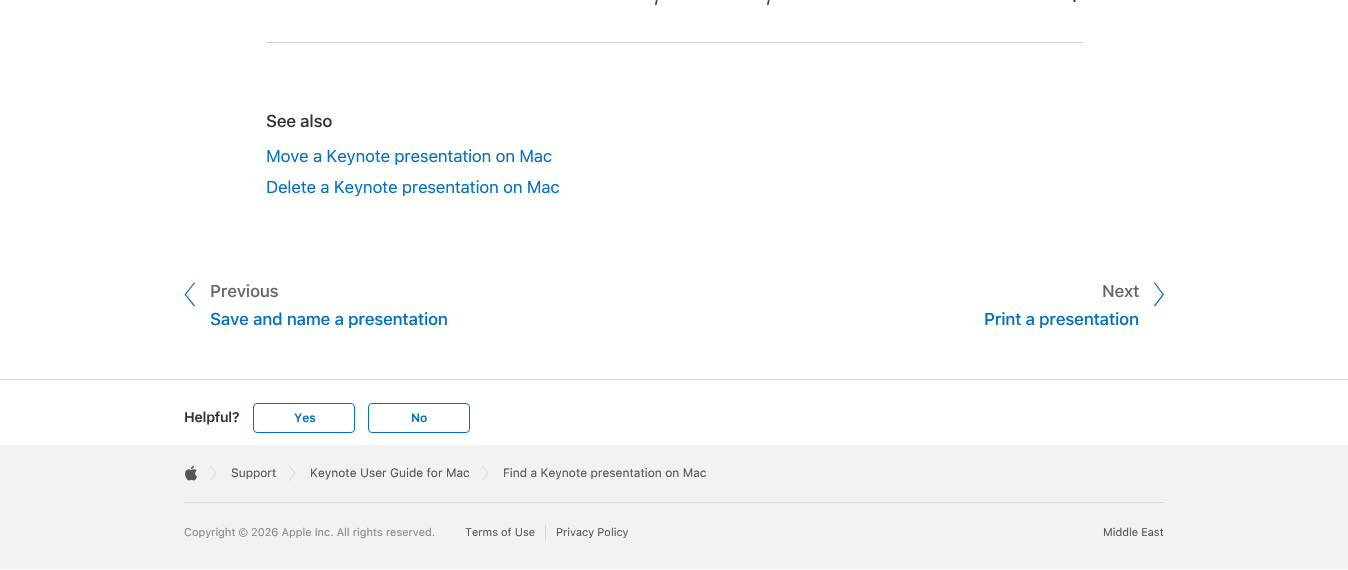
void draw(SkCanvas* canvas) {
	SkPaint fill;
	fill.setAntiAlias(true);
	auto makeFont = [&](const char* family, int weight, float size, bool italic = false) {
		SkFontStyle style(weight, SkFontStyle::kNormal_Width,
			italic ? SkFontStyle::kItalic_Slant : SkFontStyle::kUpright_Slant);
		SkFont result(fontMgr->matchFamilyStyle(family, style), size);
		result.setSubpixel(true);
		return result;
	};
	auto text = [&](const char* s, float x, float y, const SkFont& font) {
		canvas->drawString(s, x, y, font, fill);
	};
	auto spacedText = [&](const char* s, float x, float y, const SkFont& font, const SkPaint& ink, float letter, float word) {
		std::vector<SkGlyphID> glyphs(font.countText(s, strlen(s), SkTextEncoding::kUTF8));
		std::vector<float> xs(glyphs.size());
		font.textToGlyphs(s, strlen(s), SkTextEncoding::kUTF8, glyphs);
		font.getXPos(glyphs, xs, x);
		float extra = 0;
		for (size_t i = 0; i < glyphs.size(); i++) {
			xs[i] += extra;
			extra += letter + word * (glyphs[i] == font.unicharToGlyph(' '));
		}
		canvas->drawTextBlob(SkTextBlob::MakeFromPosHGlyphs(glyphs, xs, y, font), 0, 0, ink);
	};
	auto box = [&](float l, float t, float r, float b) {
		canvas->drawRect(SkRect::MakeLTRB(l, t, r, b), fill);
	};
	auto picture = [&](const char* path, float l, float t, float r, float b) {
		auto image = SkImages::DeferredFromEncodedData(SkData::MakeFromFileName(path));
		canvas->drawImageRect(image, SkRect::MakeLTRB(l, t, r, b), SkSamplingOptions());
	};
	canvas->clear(0xFFFFFFFF);
	fill.setColor(0xFFCCCCCC);
	box(266, 42, 1083, 43);
	fill.setColor(0xFF0070C9);
	canvas->drawPath(SkPathBuilder().moveTo(194, 282.5f).lineTo(184.5f, 294.5f).lineTo(194, 306.5f).lineTo(195, 305.5f).lineTo(186, 294.5f).lineTo(195, 283).close().detach(), fill);
	canvas->drawPath(SkPathBuilder().moveTo(1154, 283).lineTo(1162.5f, 294.5f).lineTo(1154, 305.5f).lineTo(1155, 306.5f).lineTo(1164, 294.5f).lineTo(1155, 282.5f).close().detach(), fill);
	fill.setColor(0xFFD9D9D9);
	box(0, 379, 1348, 380);
	fill.setStyle(SkPaint::kStroke_Style);
	fill.setStrokeWidth(1);
	fill.setColor(0xFF0070C9);
	canvas->drawRoundRect(SkRect::MakeLTRB(253.5f, 403.5f, 354.5f, 432.5f), 3.5f, 3.5f, fill);
	canvas->drawRoundRect(SkRect::MakeLTRB(368.5f, 403.5f, 469.5f, 432.5f), 3.5f, 3.5f, fill);
	fill.setStyle(SkPaint::kFill_Style);
	fill.setColor(0xFFF2F2F2);
	box(0, 445, 1348, 569);
	picture("image0.png", 185, 465, 197, 481);
	picture("image1.png", 209, 465, 217, 481);
	picture("image1.png", 288, 465, 296, 481);
	picture("image1.png", 481, 465, 489, 481);
	fill.setColor(0xFFD6D6D6);
	box(184, 502, 1164, 503);
	box(545, 525, 546, 540);
	auto font1 = makeFont("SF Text", 400, 17);
	fill.setColor(0xFF333333);
	spacedText(",", 654, 2, font1, fill, -0.35f, 0);
	spacedText(",", 766, 2, font1, fill, -0.35f, 0);
	spacedText(".", 1072, 2, font1, fill, -0.35f, 0);
	auto font2 = makeFont("SF Text", 500, 17);
	spacedText("See also", 266, 127, font2, fill, -0.35f, 0);
	fill.setColor(0xFF0070C9);
	spacedText("Move a Keynote presentation on Mac", 266, 162, font1, fill, -0.35f, 0);
	spacedText("Delete a Keynote presentation on Mac", 266, 193, font1, fill, -0.35f, 0);
	fill.setColor(0xFF666666);
	spacedText("Previous", 210, 297, font2, fill, -0.35f, 0);
	fill.setColor(0xFF0070C9);
	spacedText("Save and name a presentation", 210, 325, font2, fill, -0.35f, 0);
	fill.setColor(0xFF666666);
	spacedText("Next", 1102, 297, font2, fill, -0.35f, 0);
	fill.setColor(0xFF0070C9);
	spacedText("Print a presentation", 984, 325, font2, fill, -0.35f, 0);
	auto font3 = makeFont("SF Text", 600, 14);
	fill.setColor(0xFF333333);
	spacedText("Helpful?", 184, 422, font3, fill, -0.25f, 0);
	auto font4 = makeFont("SF Text", 600, 12);
	fill.setColor(0xFF0070C9);
	text("Yes", 294, 422, font4);
	text("No", 411, 422, font4);
	auto font5 = makeFont("SF Text", 400, 12);
	fill.setColor(0xFF555555);
	text("Support", 231, 477, font5);
	text("Keynote User Guide for Mac", 310, 477, font5);
	text("Find a Keynote presentation on Mac", 503, 477, font5);
	auto font6 = makeFont("SF Text", 400, 11.05f);
	fill.setColor(0xFF888888);
	text("Copyright © 2026 Apple Inc. All rights reserved.", 184, 536, font6);
	fill.setColor(0xFF555555);
	text("Terms of Use", 465, 536, font6);
	text("Privacy Policy", 556, 536, font6);
	text("Middle East", 1103, 536, font6);
}
